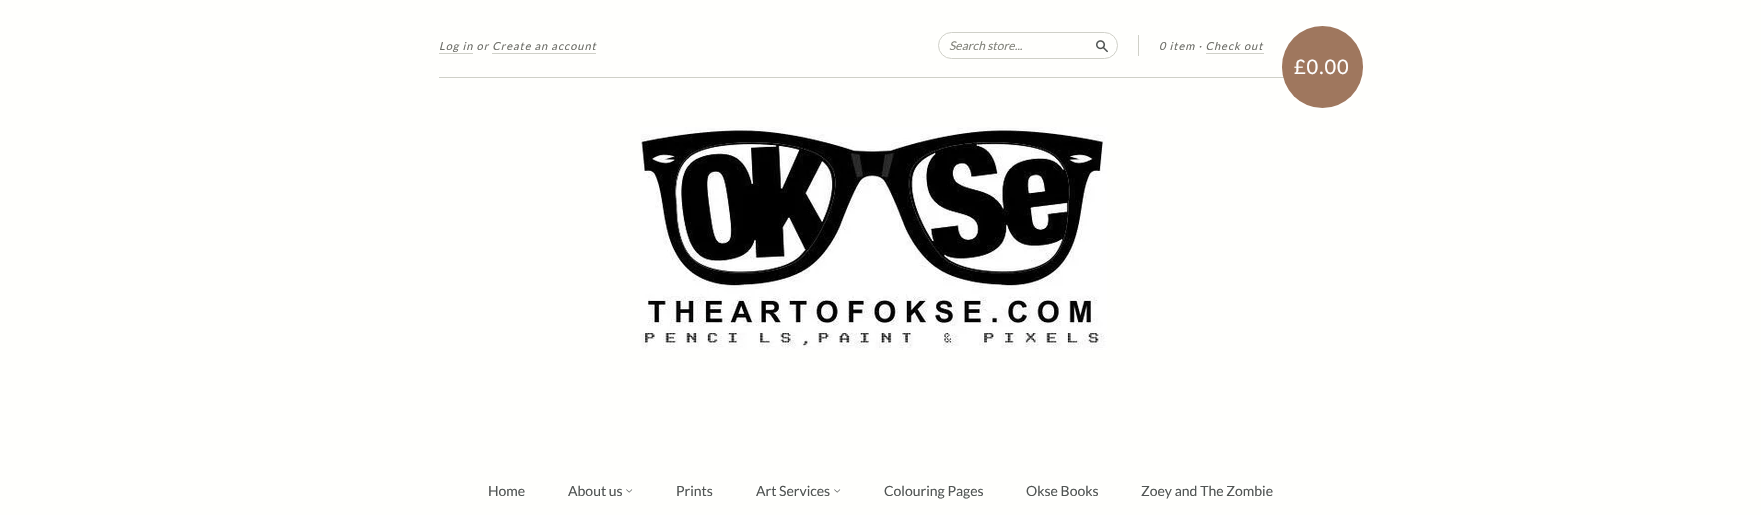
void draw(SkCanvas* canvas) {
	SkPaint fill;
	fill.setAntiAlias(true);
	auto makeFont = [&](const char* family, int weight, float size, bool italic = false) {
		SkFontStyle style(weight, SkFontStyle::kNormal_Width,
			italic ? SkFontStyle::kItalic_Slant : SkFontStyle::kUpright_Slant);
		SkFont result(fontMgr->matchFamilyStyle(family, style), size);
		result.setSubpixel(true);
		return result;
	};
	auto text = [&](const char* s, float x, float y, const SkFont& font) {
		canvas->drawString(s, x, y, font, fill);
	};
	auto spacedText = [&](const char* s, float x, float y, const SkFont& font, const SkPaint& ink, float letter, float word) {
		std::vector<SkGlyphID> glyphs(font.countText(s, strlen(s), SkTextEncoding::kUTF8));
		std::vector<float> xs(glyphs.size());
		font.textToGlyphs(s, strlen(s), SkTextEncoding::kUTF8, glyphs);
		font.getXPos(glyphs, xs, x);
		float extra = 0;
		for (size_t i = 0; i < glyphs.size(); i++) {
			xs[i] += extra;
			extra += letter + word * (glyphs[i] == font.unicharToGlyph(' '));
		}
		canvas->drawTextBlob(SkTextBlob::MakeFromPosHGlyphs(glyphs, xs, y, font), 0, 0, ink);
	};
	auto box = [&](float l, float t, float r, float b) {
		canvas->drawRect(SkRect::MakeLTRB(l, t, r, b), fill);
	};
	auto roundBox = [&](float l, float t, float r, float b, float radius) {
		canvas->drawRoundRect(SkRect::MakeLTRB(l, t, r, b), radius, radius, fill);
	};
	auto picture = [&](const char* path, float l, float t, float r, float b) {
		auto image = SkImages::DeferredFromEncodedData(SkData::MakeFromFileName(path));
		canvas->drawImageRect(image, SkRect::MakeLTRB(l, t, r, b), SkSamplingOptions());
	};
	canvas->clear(0xFFFFFFFD);
	fill.setColor(0xFFCFD0C8);
	box(439, 77, 1284, 78);
	box(439, 53, 473, 54);
	box(492, 53, 596, 54);
	fill.setStyle(SkPaint::kStroke_Style);
	fill.setStrokeWidth(1);
	canvas->drawRoundRect(SkRect::MakeLTRB(938.5f, 32.5f, 1117.5f, 58.5f), 13, 13, fill);
	picture("image0.png", 1096, 40, 1108, 53);
	fill.setStyle(SkPaint::kFill_Style);
	box(1138, 35, 1139, 56);
	box(1206, 53, 1264, 54);
	fill.setColor(0xFF9F775E);
	roundBox(1282, 26, 1363, 108, 40.5f);
	picture("image1.png", 640, 127, 1107, 350);
	picture("image2.png", 626, 489, 633, 493);
	picture("image2.png", 834, 489, 841, 493);
	auto font1 = makeFont("Lato", 400, 11, true);
	fill.setColor(0xFF6D6E68);
	spacedText("Log in or Create an account", 439, 50, font1, fill, 1, 0);
	auto font2 = makeFont("Lato", 400, 12, true);
	fill.setColor(0xFF84857D);
	text("Search store...", 949, 50, font2);
	fill.setColor(0xFF6D6E68);
	spacedText("0 item · Check out", 1159, 50, font1, fill, 1, 0);
	auto font3 = makeFont("Lato", 400, 20);
	fill.setColor(0xFFFFFFFF);
	spacedText("£0.00", 1294, 74, font3, fill, 1, 0);
	auto font4 = makeFont("Lato", 400, 14);
	fill.setColor(0xFF515554);
	text("Home", 488, 496, font4);
	text("About us", 568, 496, font4);
	text("Prints", 676, 496, font4);
	text("Art Services", 756, 496, font4);
	text("Colouring Pages", 884, 496, font4);
	text("Okse Books", 1026, 496, font4);
	text("Zoey and The Zombie", 1141, 496, font4);
}
